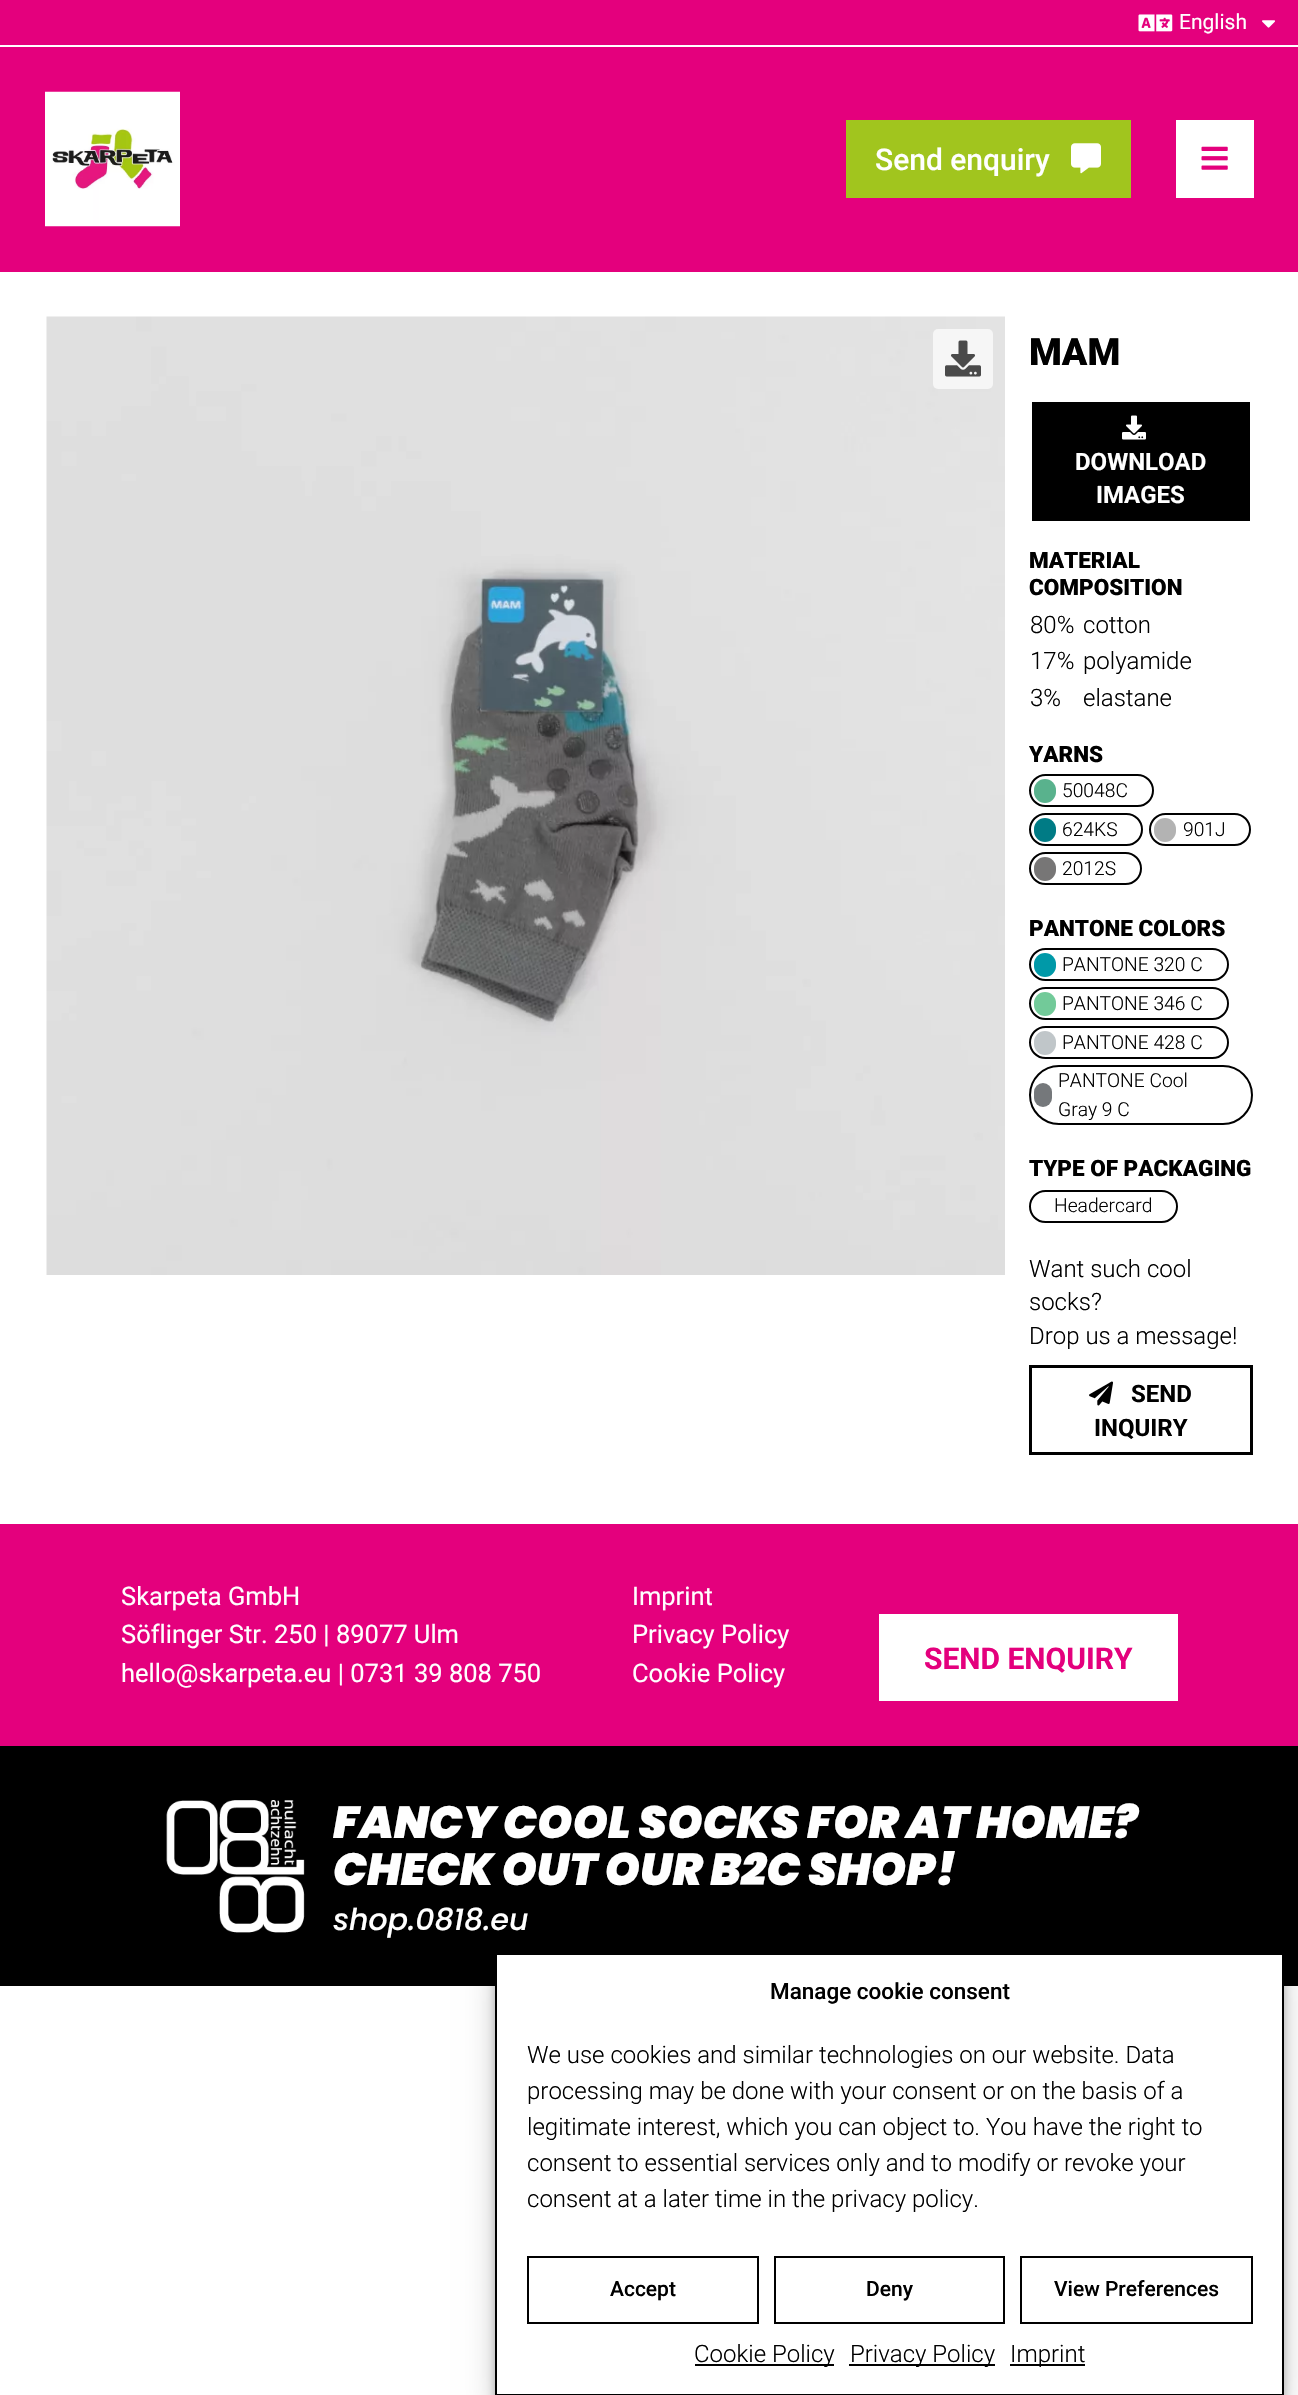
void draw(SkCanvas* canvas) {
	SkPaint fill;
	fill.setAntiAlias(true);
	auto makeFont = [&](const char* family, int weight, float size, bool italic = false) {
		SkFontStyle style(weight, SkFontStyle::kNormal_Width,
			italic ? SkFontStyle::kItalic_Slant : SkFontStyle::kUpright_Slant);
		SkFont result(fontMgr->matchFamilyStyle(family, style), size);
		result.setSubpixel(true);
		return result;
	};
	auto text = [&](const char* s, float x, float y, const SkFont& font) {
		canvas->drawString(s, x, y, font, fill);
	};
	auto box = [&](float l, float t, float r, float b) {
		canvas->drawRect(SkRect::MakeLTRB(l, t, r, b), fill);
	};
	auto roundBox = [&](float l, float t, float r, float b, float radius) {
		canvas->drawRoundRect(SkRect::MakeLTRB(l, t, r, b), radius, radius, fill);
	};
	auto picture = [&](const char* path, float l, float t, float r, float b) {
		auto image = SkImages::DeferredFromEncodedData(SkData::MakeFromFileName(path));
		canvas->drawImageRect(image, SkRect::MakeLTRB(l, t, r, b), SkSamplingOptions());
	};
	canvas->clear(0xFFFFFFFF);
	fill.setStyle(SkPaint::kStroke_Style);
	fill.setStrokeWidth(2);
	fill.setColor(0xFFE4007D);
	canvas->drawRect(SkRect::MakeLTRB(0, 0, 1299, 47), fill);
	fill.setStyle(SkPaint::kFill_Style);
	box(1, 1, 1298, 45);
	fill.setColor(0xFFFFFFFF);
	box(0, 45, 1298, 47);
	picture("image0.png", 1138, 14, 1173, 32);
	picture("image1.png", 1262, 20, 1275, 28);
	fill.setColor(0xFFE4007D);
	box(0, 48, 1298, 272);
	picture("image2.png", 45, 91, 180, 227);
	fill.setColor(0xFFA1C51E);
	box(846, 120, 1131, 198);
	picture("image3.png", 1071, 143, 1101, 174);
	fill.setColor(0xFFFFFFFF);
	box(1176, 120, 1254, 198);
	picture("image4.png", 1201, 146, 1228, 170);
	picture("image5.png", 46, 316, 1005, 1275);
	fill.setColor(0xFFF6F6F6);
	roundBox(933, 329, 993, 389, 5);
	picture("image6.png", 945, 340, 981, 377);
	fill.setColor(0xFF000000);
	box(1032, 402, 1250, 521);
	picture("image7.png", 1122, 415, 1146, 440);
	fill.setStyle(SkPaint::kStroke_Style);
	canvas->drawRoundRect(SkRect::MakeLTRB(1030, 775, 1153, 806), 15.5f, 15.5f, fill);
	fill.setStyle(SkPaint::kFill_Style);
	fill.setColor(0xFF59B28D);
	roundBox(1034, 779, 1056, 803, 11);
	fill.setStyle(SkPaint::kStroke_Style);
	fill.setColor(0xFF000000);
	canvas->drawRoundRect(SkRect::MakeLTRB(1030, 814, 1142, 845), 15.5f, 15.5f, fill);
	fill.setStyle(SkPaint::kFill_Style);
	fill.setColor(0xFF007B85);
	roundBox(1034, 818, 1056, 842, 11);
	fill.setStyle(SkPaint::kStroke_Style);
	fill.setColor(0xFF000000);
	canvas->drawRoundRect(SkRect::MakeLTRB(1150, 814, 1250, 845), 15.5f, 15.5f, fill);
	fill.setStyle(SkPaint::kFill_Style);
	fill.setColor(0xFFB3B3B3);
	roundBox(1154, 818, 1176, 842, 11);
	fill.setStyle(SkPaint::kStroke_Style);
	fill.setColor(0xFF000000);
	canvas->drawRoundRect(SkRect::MakeLTRB(1030, 853, 1141, 884), 15.5f, 15.5f, fill);
	fill.setStyle(SkPaint::kFill_Style);
	fill.setColor(0xFF777676);
	roundBox(1034, 857, 1056, 881, 11);
	fill.setStyle(SkPaint::kStroke_Style);
	fill.setColor(0xFF000000);
	canvas->drawRoundRect(SkRect::MakeLTRB(1030, 949, 1228, 980), 15.5f, 15.5f, fill);
	fill.setStyle(SkPaint::kFill_Style);
	fill.setColor(0xFF0099A8);
	roundBox(1034, 953, 1056, 977, 11);
	fill.setStyle(SkPaint::kStroke_Style);
	fill.setColor(0xFF000000);
	canvas->drawRoundRect(SkRect::MakeLTRB(1030, 988, 1228, 1019), 15.5f, 15.5f, fill);
	fill.setStyle(SkPaint::kFill_Style);
	fill.setColor(0xFF72CA99);
	roundBox(1034, 992, 1056, 1016, 11);
	fill.setStyle(SkPaint::kStroke_Style);
	fill.setColor(0xFF000000);
	canvas->drawRoundRect(SkRect::MakeLTRB(1030, 1027, 1228, 1058), 15.5f, 15.5f, fill);
	fill.setStyle(SkPaint::kFill_Style);
	fill.setColor(0xFFC0C6C9);
	roundBox(1034, 1031, 1056, 1055, 11);
	fill.setStyle(SkPaint::kStroke_Style);
	fill.setColor(0xFF000000);
	canvas->drawRoundRect(SkRect::MakeLTRB(1030, 1066, 1252, 1124), 29, 29, fill);
	fill.setStyle(SkPaint::kFill_Style);
	fill.setColor(0xFF75787B);
	roundBox(1034, 1083, 1052, 1107, 9);
	fill.setStyle(SkPaint::kStroke_Style);
	fill.setColor(0xFF000000);
	canvas->drawRoundRect(SkRect::MakeLTRB(1030, 1191, 1177, 1222), 15.5f, 15.5f, fill);
	fill.setStrokeWidth(3);
	canvas->drawRect(SkRect::MakeLTRB(1030.5f, 1366.5f, 1251.5f, 1453.5f), fill);
	picture("image8.png", 1089, 1381, 1113, 1406);
	fill.setStyle(SkPaint::kFill_Style);
	fill.setColor(0xFFE4007D);
	box(0, 1524, 1298, 1746);
	fill.setColor(0xFFFFFFFF);
	box(879, 1614, 1178, 1701);
	fill.setColor(0xFF000000);
	box(0, 1746, 1298, 1986);
	picture("image9.png", 166, 1800, 305, 1933);
	fill.setColor(0x3B000000);
	fill.setMaskFilter(SkMaskFilter::MakeBlur(kNormal_SkBlurStyle, 4.5f));
	canvas->drawRect(SkRect::MakeLTRB(495, 1962, 1284, 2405), fill);
	fill.setMaskFilter(nullptr);
	fill.setColor(0x30000000);
	fill.setMaskFilter(SkMaskFilter::MakeBlur(kNormal_SkBlurStyle, 15));
	canvas->drawRect(SkRect::MakeLTRB(495, 1968, 1284, 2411), fill);
	fill.setMaskFilter(nullptr);
	fill.setColor(0xFFFFFFFF);
	canvas->drawRect(SkRect::MakeLTRB(496, 1954, 1283, 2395), fill);
	fill.setStyle(SkPaint::kStroke_Style);
	fill.setStrokeWidth(2);
	fill.setColor(0xFF000000);
	canvas->drawRect(SkRect::MakeLTRB(496, 1954, 1283, 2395), fill);
	canvas->drawRect(SkRect::MakeLTRB(528, 2257, 758, 2323), fill);
	canvas->drawRect(SkRect::MakeLTRB(775, 2257, 1004, 2323), fill);
	canvas->drawRect(SkRect::MakeLTRB(1021, 2257, 1252, 2323), fill);
	fill.setStyle(SkPaint::kFill_Style);
	box(695, 2364, 834, 2366);
	box(849, 2364, 995, 2366);
	box(1010, 2364, 1085, 2366);
	auto font1 = makeFont("Roboto", 400, 21);
	fill.setColor(0xFFFFFFFF);
	text("English", 1179, 29, font1);
	auto font2 = makeFont("Roboto", 500, 30);
	text("Send enquiry", 875, 170, font2);
	auto font3 = makeFont("Roboto", 900, 37.5f);
	fill.setColor(0xFF000000);
	text("MAM", 1029, 365, font3);
	auto font4 = makeFont("Roboto", 700, 24);
	fill.setColor(0xFFFFFFFF);
	text("DOWNLOAD", 1075, 470, font4);
	text("IMAGES", 1096, 503, font4);
	auto font5 = makeFont("Roboto", 900, 22.5f);
	fill.setColor(0xFF000000);
	text("MATERIAL", 1029, 568, font5);
	text("COMPOSITION", 1029, 595, font5);
	auto font6 = makeFont("Roboto", 300, 24);
	text("80%", 1030, 633, font6);
	text("cotton", 1083, 633, font6);
	text("17%", 1030, 669, font6);
	text("polyamide", 1083, 669, font6);
	text("3%", 1030, 706, font6);
	text("elastane", 1083, 706, font6);
	text("YARNS", 1029, 762, font5);
	auto font7 = makeFont("Roboto", 300, 19.25f);
	text("50048C", 1062, 797, font7);
	text("624KS", 1062, 836, font7);
	text("901J", 1183, 836, font7);
	text("2012S", 1062, 875, font7);
	text("PANTONE COLORS", 1029, 936, font5);
	text("PANTONE 320 C", 1062, 971, font7);
	text("PANTONE 346 C", 1062, 1010, font7);
	text("PANTONE 428 C", 1062, 1049, font7);
	text("PANTONE Cool", 1058, 1087, font7);
	text("Gray 9 C", 1058, 1116, font7);
	text("TYPE OF PACKAGING", 1029, 1176, font5);
	text("Headercard", 1054, 1212, font7);
	text("Want such cool", 1029, 1277, font6);
	text("socks?", 1029, 1310, font6);
	text("Drop us a message!", 1029, 1344, font6);
	text("SEND", 1131, 1402, font4);
	text("INQUIRY", 1094, 1436, font4);
	auto font8 = makeFont("Roboto", 400, 25.5f);
	fill.setColor(0xFFFFFFFF);
	text("Skarpeta GmbH", 121, 1605, font8);
	text("Söflinger Str. 250 | 89077 Ulm", 121, 1643, font8);
	text("hello@skarpeta.eu | 0731 39 808 750", 121, 1682, font8);
	text("Imprint", 632, 1605, font8);
	text("Privacy Policy", 632, 1643, font8);
	text("Cookie Policy", 632, 1682, font8);
	auto font9 = makeFont("Roboto", 700, 30);
	fill.setColor(0xFFE4007D);
	text("SEND ENQUIRY", 924, 1669, font9);
	auto font10 = makeFont("Poppins", 900, 45, true);
	fill.setColor(0xFFFFFFFF);
	text("FANCY COOL SOCKS FOR AT HOME?", 333, 1838, font10);
	text("CHECK OUT OUR B2C SHOP!", 333, 1885, font10);
	auto font11 = makeFont("Poppins", 500, 30, true);
	text("shop.0818.eu", 333, 1930, font11);
	auto font12 = makeFont("Roboto", 500, 22.5f);
	fill.setColor(0xFF000000);
	text("Manage cookie consent", 770, 1999, font12);
	text("We use cookies and similar technologies on our website. Data", 527, 2063, font6);
	text("processing may be done with your consent or on the basis of a", 527, 2099, font6);
	text("legitimate interest, which you can object to. You have the right to", 527, 2135, font6);
	text("consent to essential services only and to modify or revoke your", 527, 2171, font6);
	text("consent at a later time in the privacy policy.", 527, 2207, font6);
	auto font13 = makeFont("Roboto", 500, 21);
	text("Accept", 610, 2296, font13);
	text("Deny", 866, 2296, font13);
	text("View Preferences", 1054, 2296, font13);
	text("Cookie Policy", 694, 2362, font6);
	text("Privacy Policy", 850, 2362, font6);
	text("Imprint", 1010, 2362, font6);
}
